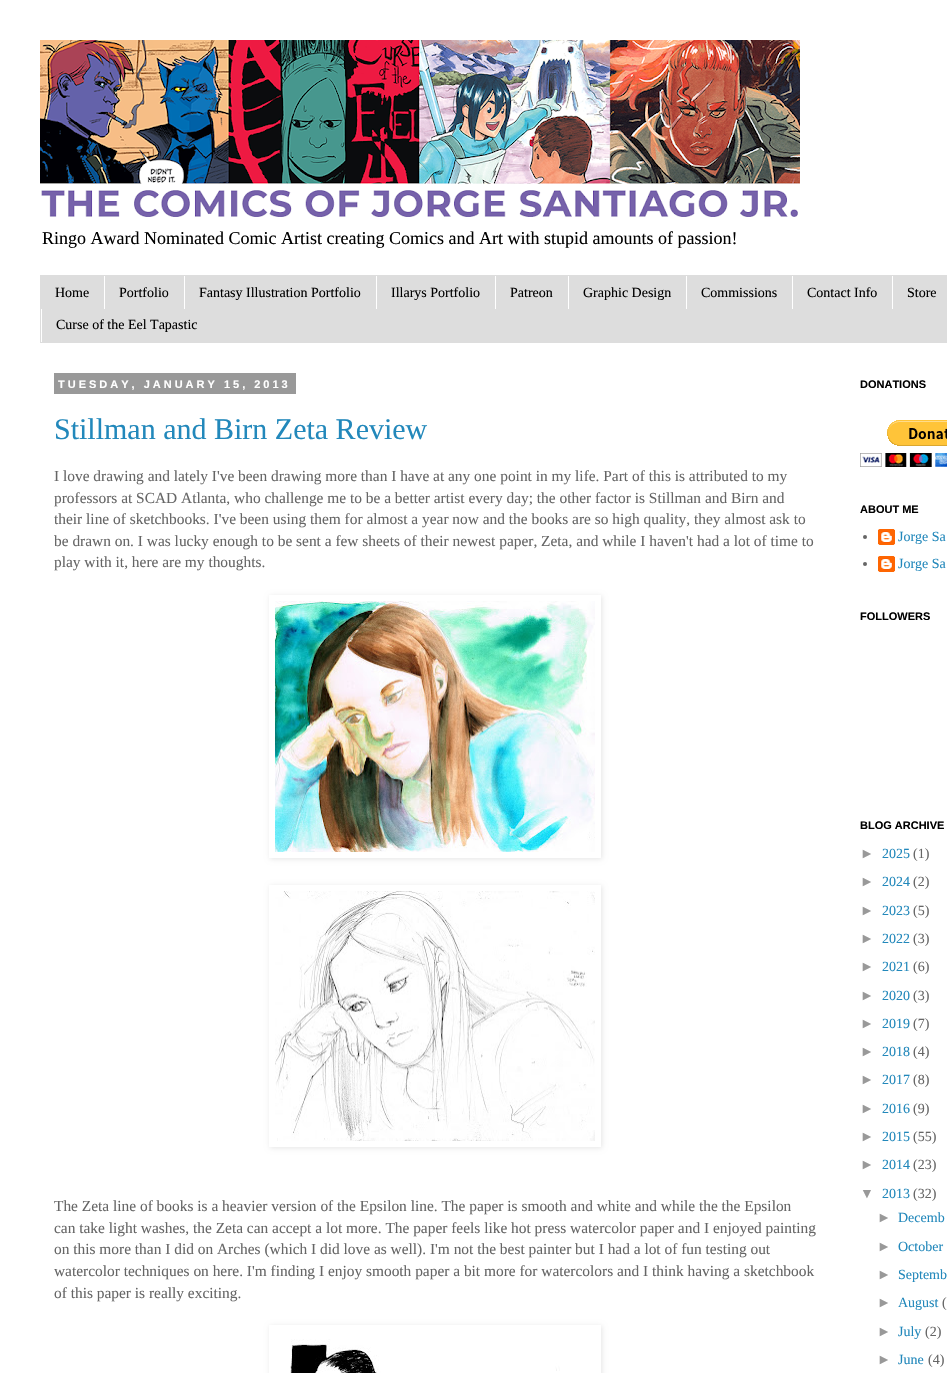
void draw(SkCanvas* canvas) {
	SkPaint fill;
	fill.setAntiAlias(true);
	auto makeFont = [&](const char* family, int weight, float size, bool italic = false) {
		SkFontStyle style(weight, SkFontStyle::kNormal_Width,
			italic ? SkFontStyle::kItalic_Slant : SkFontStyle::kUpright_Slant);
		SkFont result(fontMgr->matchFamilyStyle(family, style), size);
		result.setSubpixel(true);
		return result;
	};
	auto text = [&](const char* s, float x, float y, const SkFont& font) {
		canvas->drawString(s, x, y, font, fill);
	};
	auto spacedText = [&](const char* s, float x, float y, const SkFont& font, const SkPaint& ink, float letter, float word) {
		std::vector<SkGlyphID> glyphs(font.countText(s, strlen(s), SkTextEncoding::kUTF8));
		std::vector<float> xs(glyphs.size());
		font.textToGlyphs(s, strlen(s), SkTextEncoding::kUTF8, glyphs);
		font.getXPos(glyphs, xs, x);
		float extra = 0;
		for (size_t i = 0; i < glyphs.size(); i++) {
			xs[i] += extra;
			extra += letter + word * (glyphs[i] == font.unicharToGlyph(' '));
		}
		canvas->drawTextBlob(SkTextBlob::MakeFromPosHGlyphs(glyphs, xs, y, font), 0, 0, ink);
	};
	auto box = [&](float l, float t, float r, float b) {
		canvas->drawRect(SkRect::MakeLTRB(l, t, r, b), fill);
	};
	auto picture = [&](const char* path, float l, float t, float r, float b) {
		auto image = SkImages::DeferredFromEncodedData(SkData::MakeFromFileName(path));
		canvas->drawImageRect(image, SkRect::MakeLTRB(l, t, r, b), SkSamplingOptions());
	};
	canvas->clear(0xFFFFFFFF);
	picture("image0.png", 40, 40, 800, 217);
	fill.setColor(0xFFDDDDDD);
	box(40, 275, 947, 343);
	fill.setColor(0xFFFFFFFF);
	box(104, 276, 105, 309);
	box(184, 276, 185, 309);
	box(376, 276, 377, 309);
	box(495, 276, 496, 309);
	box(568, 276, 569, 309);
	box(686, 276, 687, 309);
	box(792, 276, 793, 309);
	box(892, 276, 893, 309);
	box(41, 309, 42, 342);
	fill.setColor(0xFF999999);
	box(54, 373, 296, 394);
	canvas->save();
	canvas->clipPath(SkPathBuilder(SkPathFillType::kEvenOdd).moveTo(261, 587).lineTo(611, 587).lineTo(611, 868).lineTo(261, 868).close().moveTo(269, 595).lineTo(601, 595).lineTo(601, 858).lineTo(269, 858).close().detach(), true);
	fill.setColor(0x1A000000);
	fill.setMaskFilter(SkMaskFilter::MakeBlur(kNormal_SkBlurStyle, 2.5f));
	canvas->drawRect(SkRect::MakeLTRB(270, 596, 602, 859), fill);
	fill.setMaskFilter(nullptr);
	canvas->restore();
	picture("image1.png", 275, 601, 595, 852);
	canvas->save();
	canvas->clipPath(SkPathBuilder(SkPathFillType::kEvenOdd).moveTo(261, 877).lineTo(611, 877).lineTo(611, 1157).lineTo(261, 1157).close().moveTo(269, 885).lineTo(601, 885).lineTo(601, 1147).lineTo(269, 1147).close().detach(), true);
	fill.setMaskFilter(SkMaskFilter::MakeBlur(kNormal_SkBlurStyle, 2.5f));
	canvas->drawRect(SkRect::MakeLTRB(270, 886, 602, 1148), fill);
	fill.setMaskFilter(nullptr);
	canvas->restore();
	picture("image2.png", 275, 891, 595, 1141);
	canvas->save();
	canvas->clipPath(SkPathBuilder(SkPathFillType::kEvenOdd).moveTo(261, 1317).lineTo(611, 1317).lineTo(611, 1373).lineTo(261, 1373).close().moveTo(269, 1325).lineTo(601, 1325).lineTo(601, 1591).lineTo(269, 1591).close().detach(), true);
	fill.setMaskFilter(SkMaskFilter::MakeBlur(kNormal_SkBlurStyle, 2.5f));
	canvas->drawRect(SkRect::MakeLTRB(270, 1326, 602, 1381), fill);
	fill.setMaskFilter(nullptr);
	canvas->restore();
	picture("image3.png", 290, 1339, 560, 1373);
	picture("image4.png", 860, 420, 947, 467);
	fill.setColor(0xFF666666);
	canvas->drawCircle(865, 537, 2, fill);
	picture("image5.png", 878, 529, 895, 545);
	canvas->drawCircle(865, 564, 2, fill);
	picture("image5.png", 878, 556, 895, 572);
	auto font1 = makeFont("Liberation Serif", 400, 18);
	fill.setColor(0xFF000000);
	text("Ringo Award Nominated Comic Artist creating Comics and Art with stupid amounts of passion!", 42, 244, font1);
	auto font2 = makeFont("Liberation Serif", 400, 14);
	text("Home", 55, 297, font2);
	text("Portfolio", 119, 297, font2);
	text("Fantasy Illustration Portfolio", 199, 297, font2);
	text("Illarys Portfolio", 391, 297, font2);
	text("Patreon", 510, 297, font2);
	text("Graphic Design", 583, 297, font2);
	text("Commissions", 701, 297, font2);
	text("Contact Info", 807, 297, font2);
	text("Store", 907, 297, font2);
	text("Curse of the Eel Tapastic", 56, 329, font2);
	auto font3 = makeFont("Liberation Sans", 700, 11);
	fill.setColor(0xFFFFFFFF);
	spacedText("TUESDAY, JANUARY 15, 2013", 58, 388, font3, fill, 3, 0);
	auto font4 = makeFont("Liberation Serif", 400, 30);
	fill.setColor(0xFF2288BB);
	text("Stillman and Birn Zeta Review", 54, 439, font4);
	auto font5 = makeFont("Liberation Serif", 400, 15.4f);
	fill.setColor(0xFF666666);
	text("I love drawing and lately I've been drawing more than I have at any one point in my life. Part of this is attributed to my", 54, 481, font5);
	text("professors at SCAD Atlanta, who challenge me to be a better artist every day; the other factor is Stillman and Birn and", 54, 503, font5);
	text("their line of sketchbooks. I've been using them for almost a year now and the books are so high quality, they almost ask to", 54, 524, font5);
	text("be drawn on. I was lucky enough to be sent a few sheets of their newest paper, Zeta, and while I haven't had a lot of time to", 54, 546, font5);
	text("play with it, here are my thoughts.", 54, 567, font5);
	text("The Zeta line of books is a heavier version of the Epsilon line. The paper is smooth and white and while the the Epsilon", 54, 1211, font5);
	text("can take light washes, the Zeta can accept a lot more. The paper feels like hot press watercolor paper and I enjoyed painting", 54, 1233, font5);
	text("on this more than I did on Arches (which I did love as well). I'm not the best painter but I had a lot of fun testing out", 54, 1254, font5);
	text("watercolor techniques on here. I'm finding I enjoy smooth paper a bit more for watercolors and I think having a sketchbook", 54, 1276, font5);
	text("of this paper is really exciting.", 54, 1298, font5);
	fill.setColor(0xFF000000);
	text("DONATIONS", 860, 388, font3);
	text("ABOUT ME", 860, 513, font3);
	fill.setColor(0xFF2288BB);
	text("Jorge Sa", 898, 541, font2);
	text("Jorge Sa", 898, 568, font2);
	fill.setColor(0xFF000000);
	text("FOLLOWERS", 860, 620, font3);
	text("BLOG ARCHIVE", 860, 829, font3);
	auto font6 = makeFont("Liberation Sans", 400, 14);
	fill.setColor(0xFF999999);
	text("►", 860, 858, font6);
	fill.setColor(0xFF2288BB);
	text("2025", 882, 858, font2);
	fill.setColor(0xFF666666);
	text("(1)", 913, 858, font2);
	fill.setColor(0xFF999999);
	text("►", 860, 886, font6);
	fill.setColor(0xFF2288BB);
	text("2024", 882, 886, font2);
	fill.setColor(0xFF666666);
	text("(2)", 913, 886, font2);
	fill.setColor(0xFF999999);
	text("►", 860, 915, font6);
	fill.setColor(0xFF2288BB);
	text("2023", 882, 915, font2);
	fill.setColor(0xFF666666);
	text("(5)", 913, 915, font2);
	fill.setColor(0xFF999999);
	text("►", 860, 943, font6);
	fill.setColor(0xFF2288BB);
	text("2022", 882, 943, font2);
	fill.setColor(0xFF666666);
	text("(3)", 913, 943, font2);
	fill.setColor(0xFF999999);
	text("►", 860, 971, font6);
	fill.setColor(0xFF2288BB);
	text("2021", 882, 971, font2);
	fill.setColor(0xFF666666);
	text("(6)", 913, 971, font2);
	fill.setColor(0xFF999999);
	text("►", 860, 1000, font6);
	fill.setColor(0xFF2288BB);
	text("2020", 882, 1000, font2);
	fill.setColor(0xFF666666);
	text("(3)", 913, 1000, font2);
	fill.setColor(0xFF999999);
	text("►", 860, 1028, font6);
	fill.setColor(0xFF2288BB);
	text("2019", 882, 1028, font2);
	fill.setColor(0xFF666666);
	text("(7)", 913, 1028, font2);
	fill.setColor(0xFF999999);
	text("►", 860, 1056, font6);
	fill.setColor(0xFF2288BB);
	text("2018", 882, 1056, font2);
	fill.setColor(0xFF666666);
	text("(4)", 913, 1056, font2);
	fill.setColor(0xFF999999);
	text("►", 860, 1084, font6);
	fill.setColor(0xFF2288BB);
	text("2017", 882, 1084, font2);
	fill.setColor(0xFF666666);
	text("(8)", 913, 1084, font2);
	fill.setColor(0xFF999999);
	text("►", 860, 1113, font6);
	fill.setColor(0xFF2288BB);
	text("2016", 882, 1113, font2);
	fill.setColor(0xFF666666);
	text("(9)", 913, 1113, font2);
	fill.setColor(0xFF999999);
	text("►", 860, 1141, font6);
	fill.setColor(0xFF2288BB);
	text("2015", 882, 1141, font2);
	fill.setColor(0xFF666666);
	text("(55)", 913, 1141, font2);
	fill.setColor(0xFF999999);
	text("►", 860, 1169, font6);
	fill.setColor(0xFF2288BB);
	text("2014", 882, 1169, font2);
	fill.setColor(0xFF666666);
	text("(23)", 913, 1169, font2);
	fill.setColor(0xFF999999);
	text("▼", 860, 1198, font6);
	fill.setColor(0xFF2288BB);
	text("2013", 882, 1198, font2);
	fill.setColor(0xFF666666);
	text("(32)", 913, 1198, font2);
	fill.setColor(0xFF999999);
	text("►", 877, 1222, font6);
	fill.setColor(0xFF2288BB);
	text("Decemb", 898, 1222, font2);
	fill.setColor(0xFF999999);
	text("►", 877, 1251, font6);
	fill.setColor(0xFF2288BB);
	text("October", 898, 1251, font2);
	fill.setColor(0xFF999999);
	text("►", 877, 1279, font6);
	fill.setColor(0xFF2288BB);
	text("Septemb", 898, 1279, font2);
	fill.setColor(0xFF999999);
	text("►", 877, 1307, font6);
	fill.setColor(0xFF2288BB);
	text("August", 898, 1307, font2);
	fill.setColor(0xFF666666);
	text("(", 942, 1307, font2);
	fill.setColor(0xFF999999);
	text("►", 877, 1336, font6);
	fill.setColor(0xFF2288BB);
	text("July", 898, 1336, font2);
	fill.setColor(0xFF666666);
	text("(2)", 925, 1336, font2);
	fill.setColor(0xFF999999);
	text("►", 877, 1364, font6);
	fill.setColor(0xFF2288BB);
	text("June", 898, 1364, font2);
	fill.setColor(0xFF666666);
	text("(4)", 928, 1364, font2);
}
